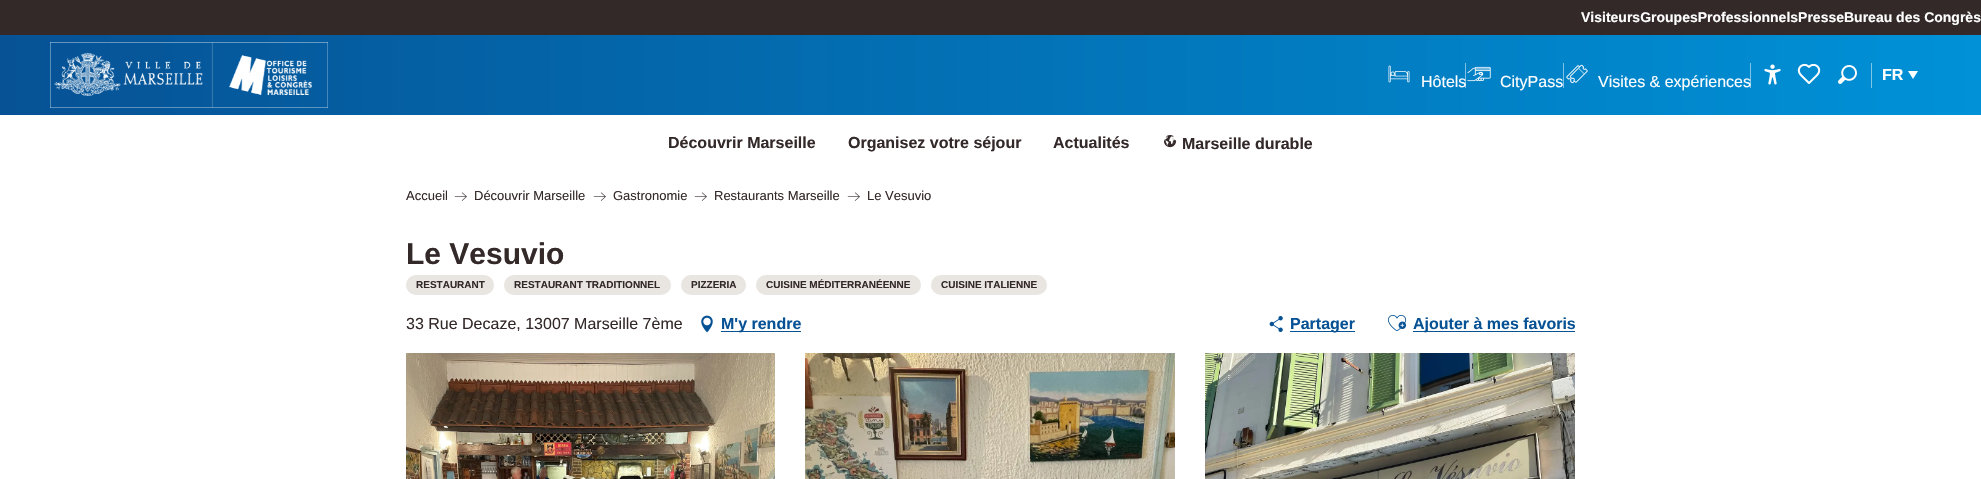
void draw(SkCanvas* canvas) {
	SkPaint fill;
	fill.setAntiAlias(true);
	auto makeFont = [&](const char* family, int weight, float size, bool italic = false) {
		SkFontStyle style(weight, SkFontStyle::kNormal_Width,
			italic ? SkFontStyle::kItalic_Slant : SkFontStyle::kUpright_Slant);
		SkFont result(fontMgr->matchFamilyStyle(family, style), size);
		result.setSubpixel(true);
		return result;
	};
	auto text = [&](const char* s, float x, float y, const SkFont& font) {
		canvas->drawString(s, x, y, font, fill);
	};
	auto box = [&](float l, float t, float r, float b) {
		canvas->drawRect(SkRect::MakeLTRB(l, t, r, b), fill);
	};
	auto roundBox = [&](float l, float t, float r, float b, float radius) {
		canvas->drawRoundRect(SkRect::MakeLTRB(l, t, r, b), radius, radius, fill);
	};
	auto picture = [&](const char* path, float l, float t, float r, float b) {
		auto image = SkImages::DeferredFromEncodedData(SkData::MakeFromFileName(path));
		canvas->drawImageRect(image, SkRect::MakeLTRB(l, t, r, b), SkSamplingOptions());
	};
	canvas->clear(0xFFFFFFFF);
	fill.setColor(0xFF342929);
	box(0, 0, 1981, 35);
	{
		const SkColor colors[] = {0xFF065295, 0xFF0091D7};
		const float stops[] = {0, 1};
		const SkPoint ends[] = {{0, 75}, {1981, 75}};
		fill.setShader(SkGradientShader::MakeLinear(ends, colors, stops, 2, SkTileMode::kClamp));
		fill.setAlpha(255);
	}
	box(0, 35, 1981, 115);
	picture("image0.png", 50, 42, 328, 108);
	picture("image1.png", 1388, 65, 1410, 83);
	picture("image2.png", 1467, 66, 1491, 82);
	fill.setShader(nullptr);
	fill.setColor(0xFF80C1E4);
	box(1563, 63, 1564, 88);
	picture("image3.png", 1566, 64, 1588, 84);
	picture("image4.png", 1164, 135, 1177, 148);
	picture("image5.png", 1764, 64, 1781, 85);
	picture("image6.png", 1797, 63, 1821, 84);
	picture("image7.png", 1838, 65, 1857, 84);
	fill.setColor(0xFF7FC6E9);
	box(1871, 63, 1872, 88);
	fill.setColor(0xFFFFFFFF);
	canvas->drawPath(SkPathBuilder().moveTo(1908, 71).lineTo(1918, 71).lineTo(1913, 79).close().detach(), fill);
	picture("image8.png", 454, 192, 467, 201);
	picture("image8.png", 593, 192, 606, 201);
	picture("image8.png", 694, 192, 707, 201);
	picture("image8.png", 847, 192, 860, 201);
	fill.setColor(0xFFE9E5E1);
	roundBox(406, 275, 494, 295, 10);
	roundBox(504, 275, 671, 295, 10);
	roundBox(681, 275, 746, 295, 10);
	roundBox(756, 275, 921, 295, 10);
	roundBox(931, 275, 1047, 295, 10);
	picture("image9.png", 701, 315, 713, 333);
	fill.setColor(0xFF065295);
	box(721, 331, 801, 332);
	picture("image10.png", 1269, 316, 1283, 332);
	box(1290, 331, 1355, 332);
	picture("image11.png", 1387, 315, 1407, 331);
	box(1413, 331, 1575, 332);
	picture("image12.png", 406, 353, 775, 479);
	picture("image13.png", 805, 353, 1175, 479);
	picture("image14.png", 1205, 353, 1575, 479);
	auto font1 = makeFont("Liberation Sans", 700, 14);
	fill.setColor(0xFFFEFEFE);
	text("VisiteursGroupesProfessionnelsPresseBureau des Congrès", 1581, 22, font1);
	auto font2 = makeFont("Liberation Sans", 400, 16);
	text("Hôtels", 1421, 87, font2);
	fill.setColor(0x80FEFEFE);
	box(1465, 63, 1466, 88);
	fill.setColor(0xFFFEFEFE);
	text("CityPass", 1500, 87, font2);
	text("Visites & expériences", 1598, 87, font2);
	fill.setColor(0x80FEFEFE);
	box(1750, 63, 1751, 88);
	auto font3 = makeFont("Liberation Sans", 700, 16);
	fill.setColor(0xFF342929);
	text("Découvrir Marseille", 668, 148, font3);
	text("Organisez votre séjour", 848, 148, font3);
	text("Actualités", 1053, 148, font3);
	text("Marseille durable", 1182, 149, font3);
	fill.setColor(0xFFFEFEFE);
	text("FR", 1882, 80, font3);
	auto font4 = makeFont("Liberation Sans", 400, 13);
	fill.setColor(0xFF342929);
	text("Accueil", 406, 200, font4);
	text("Découvrir Marseille", 474, 200, font4);
	text("Gastronomie", 613, 200, font4);
	text("Restaurants Marseille", 714, 200, font4);
	text("Le Vesuvio", 867, 200, font4);
	auto font5 = makeFont("Liberation Sans", 700, 30);
	text("Le Vesuvio", 406, 264, font5);
	auto font6 = makeFont("Liberation Sans", 700, 10);
	text("RESTAURANT", 416, 288, font6);
	text("RESTAURANT TRADITIONNEL", 514, 288, font6);
	text("PIZZERIA", 691, 288, font6);
	text("CUISINE MÉDITERRANÉENNE", 766, 288, font6);
	text("CUISINE ITALIENNE", 941, 288, font6);
	text("33 Rue Decaze, 13007 Marseille 7ème", 406, 329, font2);
	fill.setColor(0xFF065295);
	text("M'y rendre", 721, 329, font3);
	text("Partager", 1290, 329, font3);
	text("Ajouter à mes favoris", 1413, 329, font3);
}
